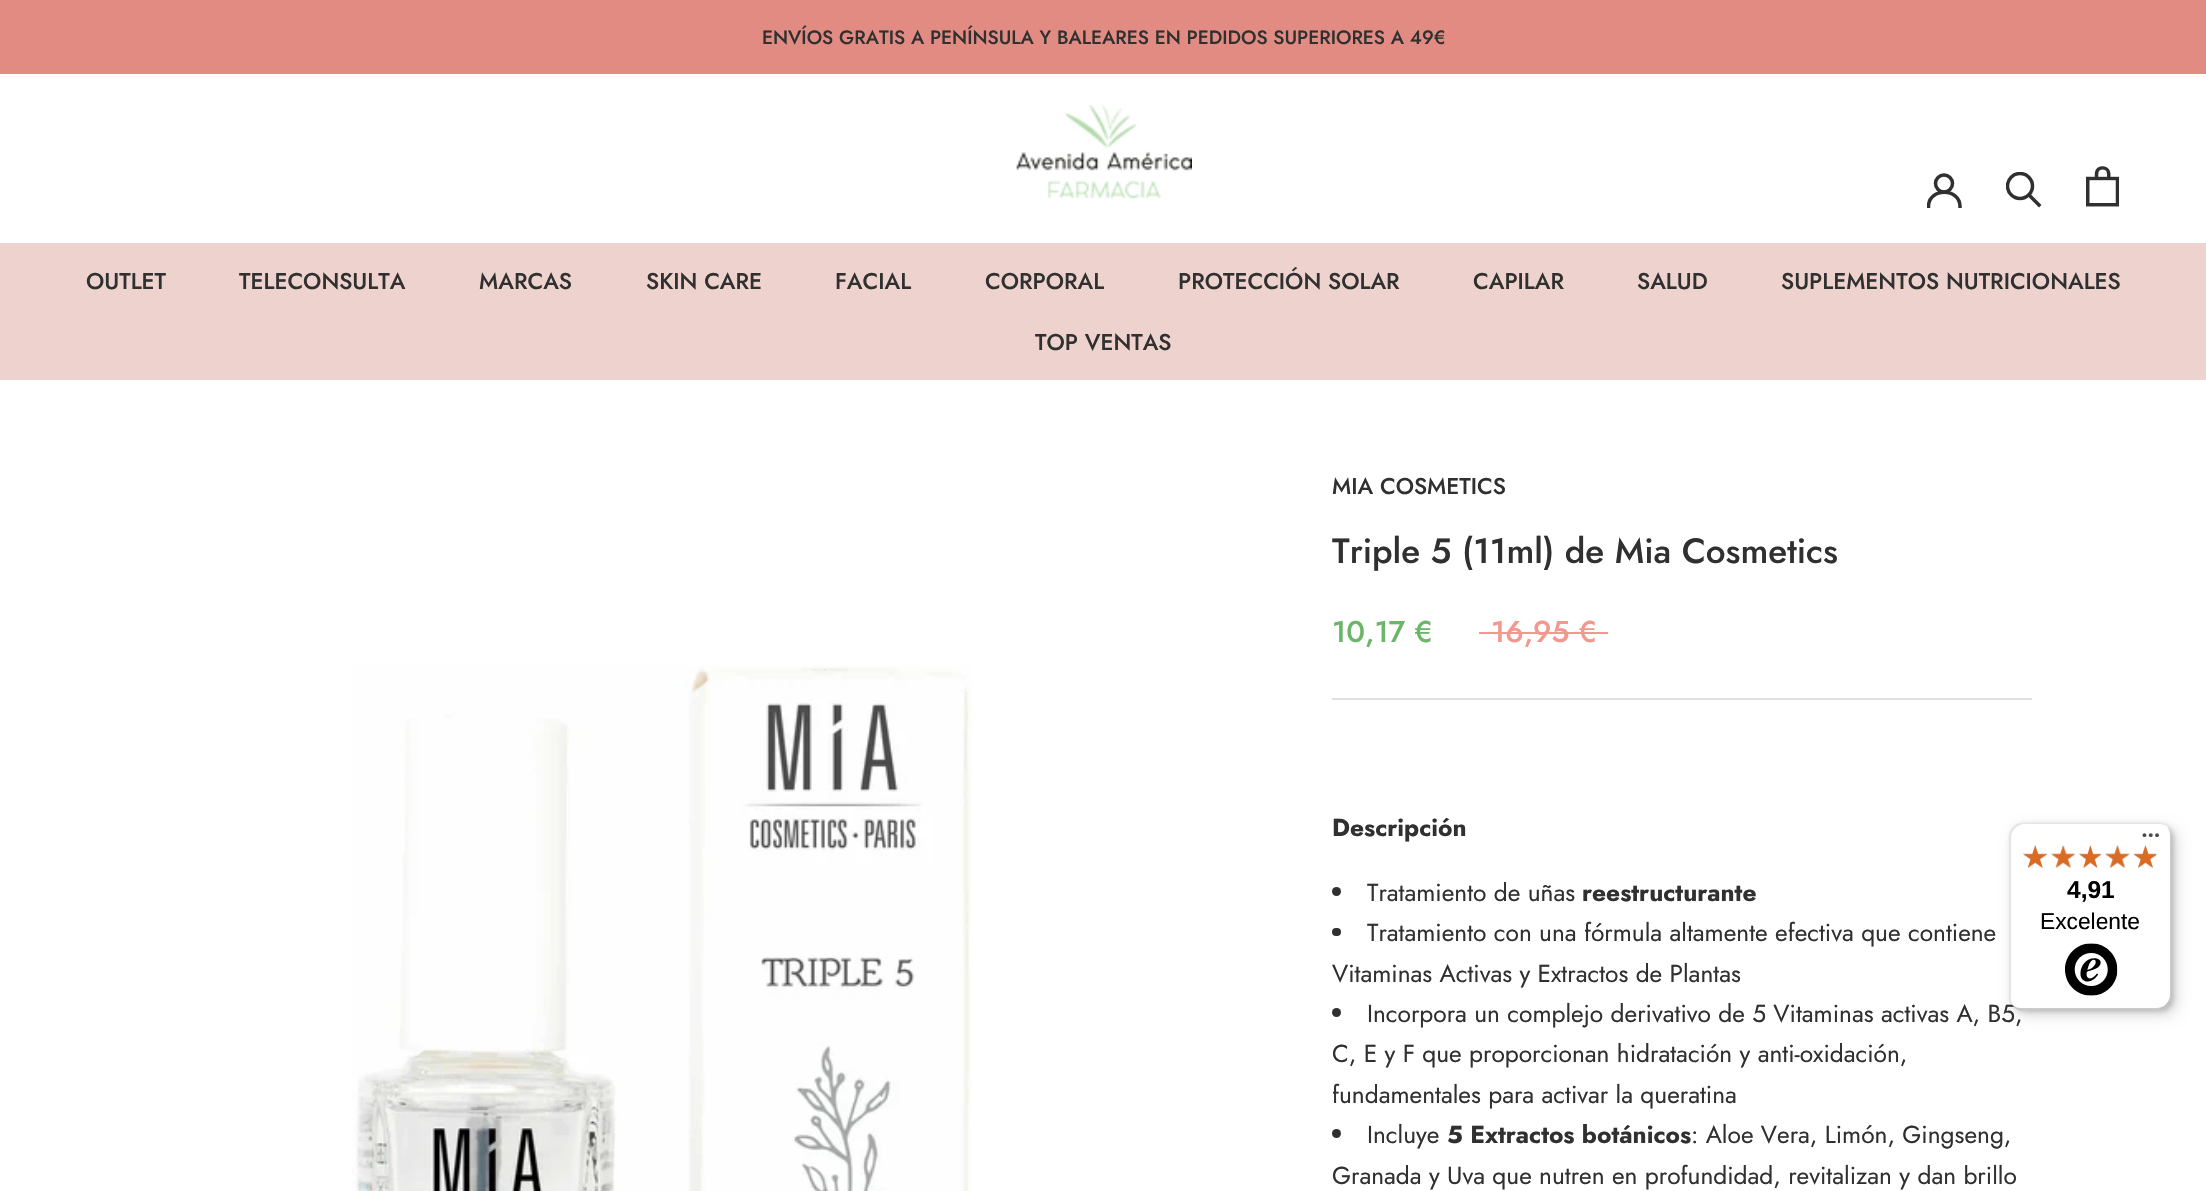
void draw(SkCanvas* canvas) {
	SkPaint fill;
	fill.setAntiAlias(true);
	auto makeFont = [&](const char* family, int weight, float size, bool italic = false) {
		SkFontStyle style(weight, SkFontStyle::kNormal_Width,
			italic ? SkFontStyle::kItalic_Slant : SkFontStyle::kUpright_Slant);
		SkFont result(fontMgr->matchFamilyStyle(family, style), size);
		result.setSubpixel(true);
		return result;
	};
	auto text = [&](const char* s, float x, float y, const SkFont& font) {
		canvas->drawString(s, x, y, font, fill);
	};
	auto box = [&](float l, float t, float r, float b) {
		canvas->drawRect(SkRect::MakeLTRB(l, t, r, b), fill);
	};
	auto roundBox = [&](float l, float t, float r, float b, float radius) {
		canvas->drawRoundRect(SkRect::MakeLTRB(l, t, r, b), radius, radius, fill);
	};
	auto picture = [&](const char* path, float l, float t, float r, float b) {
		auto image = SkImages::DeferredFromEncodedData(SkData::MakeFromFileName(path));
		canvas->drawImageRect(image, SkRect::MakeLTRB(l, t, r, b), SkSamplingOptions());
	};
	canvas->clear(0xFFFFFFFF);
	fill.setColor(0xFFE18B82);
	box(0, 0, 2206, 74);
	picture("image0.png", 1016, 105, 1192, 199);
	canvas->save();
	canvas->clipRect(SkRect::MakeLTRB(1927, 173, 1962, 208));
	fill.setStyle(SkPaint::kStroke_Style);
	fill.setStrokeWidth(3.5f);
	fill.setStrokeCap(SkPaint::kSquare_Cap);
	fill.setColor(0xFF303030);
	canvas->drawPath(SkPathBuilder().moveTo(1928.5f, 206.5f).cubicTo(1928.5f, 187.5f, 1960, 187.5f, 1960, 206.5f).detach(), fill);
	canvas->restore();
	fill.setStrokeCap(SkPaint::kButt_Cap);
	canvas->drawCircle(1944, 183.5f, 8.5f, fill);
	fill.setStrokeCap(SkPaint::kSquare_Cap);
	canvas->drawPath(SkPathBuilder().moveTo(2039, 205).lineTo(2029, 195).detach(), fill);
	canvas->save();
	canvas->clipRect(SkRect::MakeLTRB(2006, 172, 2042, 208));
	fill.setStrokeCap(SkPaint::kButt_Cap);
	canvas->drawCircle(2020, 186, 12.5f, fill);
	canvas->restore();
	picture("image1.png", 2086, 166, 2119, 207);
	fill.setStyle(SkPaint::kFill_Style);
	fill.setColor(0xFFEED2CE);
	box(0, 243, 2206, 380);
	picture("image2.png", 352, 666, 972, 1191);
	fill.setColor(0xFFE0E0E0);
	box(1332, 698, 2032, 700);
	fill.setColor(0xFFF3988E);
	box(1479, 632, 1608, 634);
	fill.setColor(0xFF303030);
	canvas->drawCircle(1336.5f, 891.5f, 4.5f, fill);
	roundBox(1332, 928, 1341, 936, 4);
	canvas->drawCircle(1336.5f, 1012.5f, 4.5f, fill);
	canvas->drawCircle(1336.5f, 1133.5f, 4.5f, fill);
	fill.setColor(0x26000000);
	fill.setMaskFilter(SkMaskFilter::MakeBlur(kNormal_SkBlurStyle, 7));
	canvas->drawRoundRect(SkRect::MakeLTRB(2014, 828, 2177, 1015), 14, 14, fill);
	fill.setMaskFilter(nullptr);
	fill.setMaskFilter(SkMaskFilter::MakeBlur(kNormal_SkBlurStyle, 2));
	canvas->drawRoundRect(SkRect::MakeLTRB(2011, 824, 2174, 1012), 14, 14, fill);
	fill.setMaskFilter(nullptr);
	auto font1 = makeFont("Jost", 500, 19.25f);
	fill.setColor(0xFF303030);
	text("ENVÍOS GRATIS A PENÍNSULA Y BALEARES EN PEDIDOS SUPERIORES A 49€", 762, 44, font1);
	auto font2 = makeFont("Jost", 500, 22.75f);
	text("OUTLET", 86, 289, font2);
	text("TELECONSULTA", 239, 289, font2);
	text("MARCAS", 479, 289, font2);
	text("SKIN CARE", 646, 289, font2);
	text("FACIAL", 835, 289, font2);
	text("CORPORAL", 985, 289, font2);
	text("PROTECCIÓN SOLAR", 1178, 289, font2);
	text("CAPILAR", 1473, 289, font2);
	text("SALUD", 1637, 289, font2);
	text("SUPLEMENTOS NUTRICIONALES", 1781, 289, font2);
	text("TOP VENTAS", 1035, 350, font2);
	text("MIA COSMETICS", 1332, 494, font2);
	auto font3 = makeFont("Jost", 500, 35);
	text("Triple 5 (11ml) de Mia Cosmetics", 1332, 563, font3);
	auto font4 = makeFont("Jost", 500, 30);
	fill.setColor(0xFF6BB66A);
	text("10,17 €", 1332, 642, font4);
	fill.setColor(0xFFF3988E);
	text("16,95 €", 1491, 642, font4);
	auto font5 = makeFont("Jost", 700, 24.5f);
	fill.setColor(0xFF303030);
	text("Descripción", 1332, 836, font5);
	auto font6 = makeFont("Jost", 400, 24.5f);
	text("Tratamiento de uñas", 1367, 901, font6);
	text("reestructurante", 1582, 901, font5);
	text("Tratamiento con una fórmula altamente efectiva que contiene", 1367, 941, font6);
	text("Vitaminas Activas y Extractos de Plantas", 1332, 982, font6);
	text("Incorpora un complejo derivativo de 5 Vitaminas activas A, B5,", 1367, 1022, font6);
	text("C, E y F que proporcionan hidratación y anti-oxidación,", 1332, 1062, font6);
	text("fundamentales para activar la queratina", 1332, 1103, font6);
	text("Incluye", 1367, 1143, font6);
	text("5 Extractos botánicos", 1447, 1143, font5);
	text(": Aloe Vera, Limón, Gingseng,", 1691, 1143, font6);
	text("Granada y Uva que nutren en profundidad, revitalizan y dan brillo", 1332, 1184, font6);
	fill.setColor(0xFFFFFFFF);
	roundBox(2009, 823, 2172, 1010, 14);
	fill.setColor(0x1A000000);
	canvas->drawPath(SkPathBuilder().moveTo(2025, 824).lineTo(2160, 824).cubicTo(2162, 824, 2165, 825, 2167, 826).cubicTo(2164, 824, 2161, 823, 2158, 823).lineTo(2023, 823).cubicTo(2015, 823, 2009, 829, 2009, 837).lineTo(2009, 996).cubicTo(2009, 1001, 2011, 1005, 2015, 1007).cubicTo(2012, 1005, 2011, 1001, 2011, 998).lineTo(2011, 838).cubicTo(2011, 831, 2017, 824, 2025, 824).close().detach(), fill);
	fill.setColor(0x33000000);
	canvas->drawPath(SkPathBuilder().moveTo(2012, 1004).cubicTo(2014, 1008, 2018, 1010, 2023, 1010).lineTo(2158, 1010).cubicTo(2166, 1010, 2172, 1004, 2172, 996).lineTo(2172, 837).cubicTo(2172, 833, 2170, 829, 2167, 827).cubicTo(2169, 829, 2170, 832, 2170, 835).lineTo(2170, 994).cubicTo(2170, 1002, 2164, 1008, 2156, 1008).lineTo(2021, 1008).cubicTo(2018, 1008, 2014, 1007, 2012, 1004).close().detach(), fill);
	fill.setColor(0x33323232);
	canvas->drawPath(SkPathBuilder().moveTo(2012, 1004).cubicTo(2014, 1008, 2018, 1010, 2023, 1010).lineTo(2158, 1010).cubicTo(2166, 1010, 2172, 1004, 2172, 996).lineTo(2172, 837).cubicTo(2172, 834, 2171, 831, 2169, 828).cubicTo(2170, 830, 2171, 833, 2171, 835).lineTo(2171, 995).cubicTo(2171, 1002, 2164, 1009, 2157, 1009).lineTo(2022, 1009).cubicTo(2018, 1009, 2014, 1007, 2012, 1004).close().detach(), fill);
	fill.setColor(0x4DFFFFFF);
	canvas->drawPath(SkPathBuilder().moveTo(2014, 1006).cubicTo(2016, 1009, 2019, 1010, 2023, 1010).lineTo(2158, 1010).cubicTo(2166, 1010, 2172, 1004, 2172, 996).lineTo(2172, 837).cubicTo(2172, 833, 2171, 830, 2168, 828).cubicTo(2170, 830, 2171, 833, 2171, 836).lineTo(2171, 995).cubicTo(2171, 1003, 2165, 1009, 2157, 1009).lineTo(2022, 1009).cubicTo(2019, 1009, 2016, 1008, 2014, 1006).close().detach(), fill);
	picture("image3.png", 2142, 833, 2159, 837);
	picture("image4.png", 2023, 845, 2047, 868);
	picture("image5.png", 2051, 845, 2075, 868);
	picture("image6.png", 2079, 846, 2102, 868);
	picture("image7.png", 2105, 845, 2130, 868);
	picture("image8.png", 2133, 846, 2158, 868);
	picture("image9.png", 2023, 845, 2047, 868);
	picture("image10.png", 2051, 845, 2076, 868);
	picture("image11.png", 2079, 845, 2102, 868);
	picture("image12.png", 2105, 845, 2130, 868);
	picture("image13.png", 2133, 845, 2156, 868);
	auto font7 = makeFont("Liberation Sans", 700, 24.5f);
	fill.setColor(0xFF000000);
	text("4,91", 2067, 898, font7);
	auto font8 = makeFont("Liberation Sans", 400, 22.75f);
	text("Excelente", 2040, 929, font8);
	picture("image14.png", 2065, 943, 2118, 996);
}
